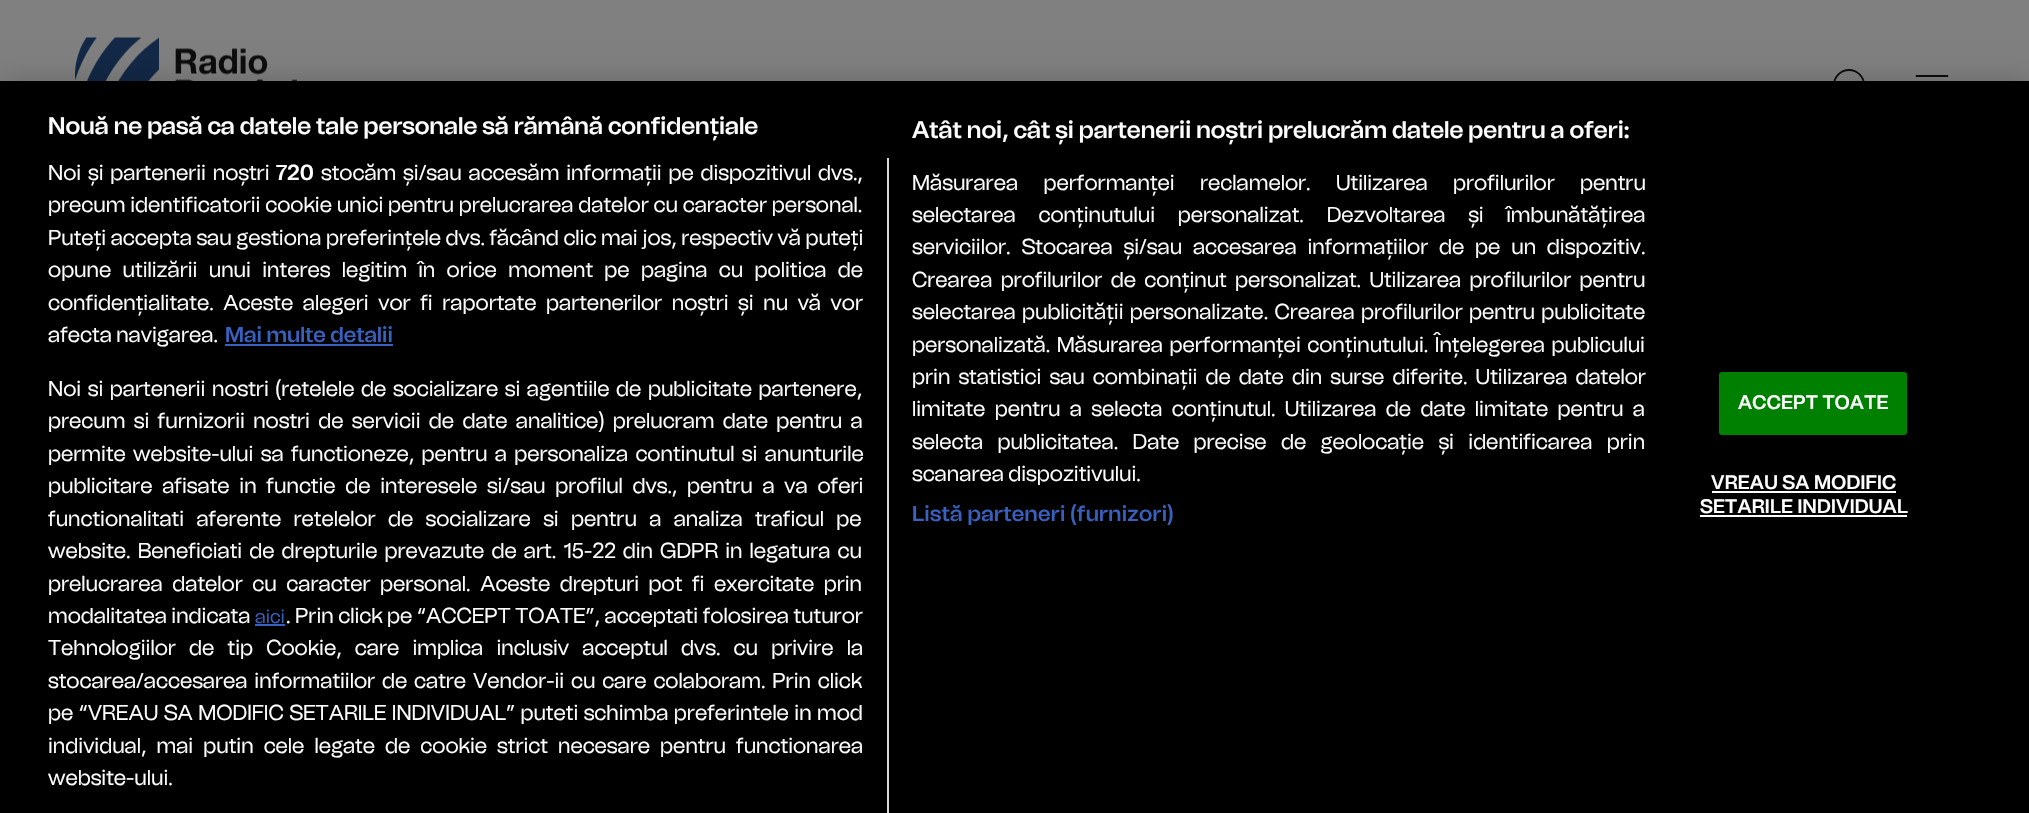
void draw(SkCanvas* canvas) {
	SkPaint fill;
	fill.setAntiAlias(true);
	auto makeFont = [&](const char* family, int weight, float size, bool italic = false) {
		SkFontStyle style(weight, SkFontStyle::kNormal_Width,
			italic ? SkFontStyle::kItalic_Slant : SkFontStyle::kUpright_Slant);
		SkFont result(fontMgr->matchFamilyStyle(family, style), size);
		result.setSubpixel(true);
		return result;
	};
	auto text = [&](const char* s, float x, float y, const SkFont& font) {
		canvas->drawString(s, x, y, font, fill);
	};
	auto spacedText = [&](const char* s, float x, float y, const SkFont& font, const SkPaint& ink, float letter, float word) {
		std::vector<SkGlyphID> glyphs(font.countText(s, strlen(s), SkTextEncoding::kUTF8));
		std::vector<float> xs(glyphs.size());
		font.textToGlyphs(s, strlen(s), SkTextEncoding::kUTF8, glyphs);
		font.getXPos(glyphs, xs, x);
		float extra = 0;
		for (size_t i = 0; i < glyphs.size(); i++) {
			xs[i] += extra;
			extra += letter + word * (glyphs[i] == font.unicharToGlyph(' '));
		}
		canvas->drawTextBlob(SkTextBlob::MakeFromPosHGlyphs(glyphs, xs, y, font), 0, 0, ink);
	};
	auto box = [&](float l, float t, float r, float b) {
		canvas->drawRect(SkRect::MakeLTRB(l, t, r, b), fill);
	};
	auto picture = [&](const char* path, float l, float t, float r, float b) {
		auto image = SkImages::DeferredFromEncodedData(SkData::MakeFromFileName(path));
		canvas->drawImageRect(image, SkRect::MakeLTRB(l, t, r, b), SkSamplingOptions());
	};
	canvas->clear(0xFF808080);
	picture("image0.png", 75, 37, 297, 81);
	fill.setStyle(SkPaint::kStroke_Style);
	fill.setStrokeWidth(1.9f);
	fill.setColor(0xFF0D0D0D);
	canvas->drawCircle(1849, 85, 15, fill);
	fill.setStrokeCap(SkPaint::kRound_Cap);
	fill.setStrokeJoin(SkPaint::kRound_Join);
	canvas->drawPath(SkPathBuilder().moveTo(1916.5f, 76).lineTo(1947.5f, 76).detach(), fill);
	fill.setStyle(SkPaint::kFill_Style);
	fill.setColor(0x33000000);
	fill.setMaskFilter(SkMaskFilter::MakeBlur(kNormal_SkBlurStyle, 13.5f));
	canvas->drawRect(SkRect::MakeLTRB(0, 81, 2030, 813), fill);
	fill.setMaskFilter(nullptr);
	fill.setColor(0xFF000000);
	box(0, 81, 2029, 813);
	fill.setColor(0xFFD8D8D8);
	box(887, 158, 889, 813);
	fill.setColor(0xFF3860BE);
	box(225, 344, 393, 346);
	box(255, 624, 285, 626);
	fill.setColor(0xFF008000);
	canvas->drawRoundRect(SkRect::MakeLTRB(1720, 373, 1906, 434), 2, 2, fill);
	fill.setStyle(SkPaint::kStroke_Style);
	fill.setStrokeWidth(2);
	fill.setStrokeCap(SkPaint::kButt_Cap);
	fill.setStrokeJoin(SkPaint::kMiter_Join);
	canvas->drawRoundRect(SkRect::MakeLTRB(1720, 373, 1906, 434), 2, 2, fill);
	fill.setStyle(SkPaint::kFill_Style);
	fill.setColor(0xFFFFFFFF);
	box(1712, 491, 1896, 493);
	box(1700, 515, 1907, 517);
	auto font1 = makeFont("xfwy", 600, 24);
	text("Nouă ne pasă ca datele tale personale să rămână confidențiale", 48, 134, font1);
	text("Atât noi, cât și partenerii noștri prelucrăm datele pentru a oferi:", 912, 138, font1);
	auto font2 = makeFont("xfwy", 400, 21.6f);
	spacedText("Măsurarea performanței reclamelor. Utilizarea profilurilor pentru", 912, 190, font2, fill, 0, 21);
	spacedText("selectarea conținutului personalizat. Dezvoltarea și îmbunătățirea", 912, 222, font2, fill, 0, 18.5f);
	spacedText("serviciilor. Stocarea și/sau accesarea informațiilor de pe un dispozitiv.", 912, 254, font2, fill, 0, 6.5f);
	spacedText("Crearea profilurilor de conținut personalizat. Utilizarea profilurilor pentru", 912, 287, font2, fill, 0, 4);
	spacedText("selectarea publicității personalizate. Crearea profilurilor pentru publicitate", 912, 319, font2, fill, 0, 2);
	spacedText("personalizată. Măsurarea performanței conținutului. Înțelegerea publicului", 912, 352, font2, fill, 0, 2.25f);
	spacedText("prin statistici sau combinații de date din surse diferite. Utilizarea datelor", 912, 384, font2, fill, 0, 3.75f);
	spacedText("limitate pentru a selecta conținutul. Utilizarea de date limitate pentru a", 912, 416, font2, fill, 0, 5);
	spacedText("selecta publicitatea. Date precise de geolocație și identificarea prin", 912, 449, font2, fill, 0, 10);
	text("scanarea dispozitivului.", 912, 481, font2);
	auto font3 = makeFont("xfwy", 600, 21.6f);
	fill.setColor(0xFF3860BE);
	spacedText("Listă parteneri (furnizori)", 912, 521, font3, fill, 0.25f, 0);
	fill.setColor(0xFFFFFFFF);
	spacedText("Noi și partenerii noștri", 48, 180, font2, fill, 0, 2.5f);
	text("720", 276, 180, font3);
	spacedText("stocăm și/sau accesăm informații pe dispozitivul dvs.,", 321, 180, font2, fill, 0, 2.5f);
	spacedText("precum identificatorii cookie unici pentru prelucrarea datelor cu caracter personal.", 48, 212, font2, fill, 0, 0.5f);
	spacedText("Puteți accepta sau gestiona preferințele dvs. făcând clic mai jos, respectiv vă puteți", 48, 245, font2, fill, 0, 0.25f);
	spacedText("opune utilizării unui interes legitim în orice moment pe pagina cu politica de", 48, 277, font2, fill, 0, 7);
	spacedText("confidențialitate. Aceste alegeri vor fi raportate partenerilor noștri și nu vă vor", 48, 310, font2, fill, 0, 5.25f);
	text("afecta navigarea.", 48, 342, font2);
	fill.setColor(0xFF3860BE);
	text("Mai multe detalii", 225, 342, font3);
	fill.setColor(0xFFFFFFFF);
	spacedText("Noi si partenerii nostri (retelele de socializare si agentiile de publicitate partenere,", 48, 396, font2, fill, 0, 2.25f);
	spacedText("precum si furnizorii nostri de servicii de date analitice) prelucram date pentru a", 48, 428, font2, fill, 0, 4);
	spacedText("permite website-ului sa functioneze, pentru a personaliza continutul si anunturile", 48, 461, font2, fill, 0, 3);
	spacedText("publicitare afisate in functie de interesele si/sau profilul dvs., pentru a va oferi", 48, 493, font2, fill, 0, 5.4f);
	spacedText("functionalitati aferente retelelor de socializare si pentru a analiza traficul pe", 48, 526, font2, fill, 0, 8);
	spacedText("website. Beneficiati de drepturile prevazute de art. 15-22 din GDPR in legatura cu", 48, 558, font2, fill, 0, 2.75f);
	spacedText("prelucrarea datelor cu caracter personal. Aceste drepturi pot fi exercitate prin", 48, 591, font2, fill, 0, 5.25f);
	text("modalitatea indicata", 48, 623, font2);
	auto font4 = makeFont("xfwy", 400, 19);
	fill.setColor(0xFF3860BE);
	text("aici", 255, 623, font4);
	fill.setColor(0xFFFFFFFF);
	spacedText(". Prin click pe “ACCEPT TOATE”, acceptati folosirea tuturor", 286, 623, font2, fill, 0, 0.25f);
	spacedText("Tehnologiilor de tip Cookie, care implica inclusiv acceptul dvs. cu privire la", 48, 655, font2, fill, 0, 8.9f);
	spacedText("stocarea/accesarea informatiilor de catre Vendor-ii cu care colaboram. Prin click", 48, 688, font2, fill, 0, 2.5f);
	spacedText("pe “VREAU SA MODIFIC SETARILE INDIVIDUAL” puteti schimba preferintele in mod", 48, 720, font2, fill, 0, 1.1f);
	spacedText("individual, mai putin cele legate de cookie strict necesare pentru functionarea", 48, 753, font2, fill, 0, 5.75f);
	text("website-ului.", 48, 785, font2);
	auto font5 = makeFont("xfwy", 600, 19.5f);
	spacedText("ACCEPT TOATE", 1738, 409, font5, fill, 0.25f, 0);
	spacedText("VREAU SA MODIFIC", 1711, 489, font5, fill, 0.25f, 0);
	spacedText("SETARILE INDIVIDUAL", 1700, 513, font5, fill, 0.25f, 0);
}
